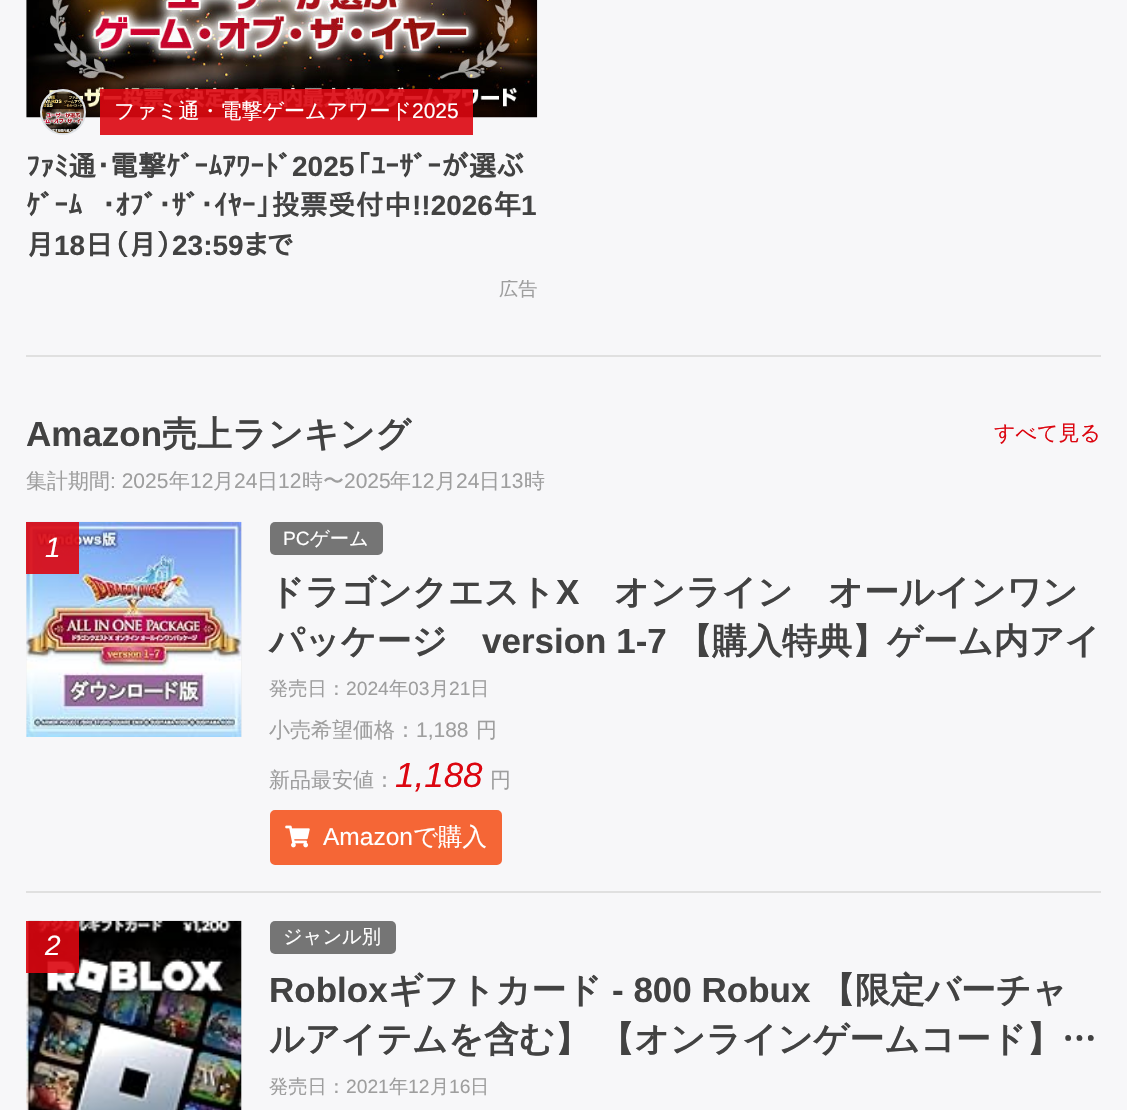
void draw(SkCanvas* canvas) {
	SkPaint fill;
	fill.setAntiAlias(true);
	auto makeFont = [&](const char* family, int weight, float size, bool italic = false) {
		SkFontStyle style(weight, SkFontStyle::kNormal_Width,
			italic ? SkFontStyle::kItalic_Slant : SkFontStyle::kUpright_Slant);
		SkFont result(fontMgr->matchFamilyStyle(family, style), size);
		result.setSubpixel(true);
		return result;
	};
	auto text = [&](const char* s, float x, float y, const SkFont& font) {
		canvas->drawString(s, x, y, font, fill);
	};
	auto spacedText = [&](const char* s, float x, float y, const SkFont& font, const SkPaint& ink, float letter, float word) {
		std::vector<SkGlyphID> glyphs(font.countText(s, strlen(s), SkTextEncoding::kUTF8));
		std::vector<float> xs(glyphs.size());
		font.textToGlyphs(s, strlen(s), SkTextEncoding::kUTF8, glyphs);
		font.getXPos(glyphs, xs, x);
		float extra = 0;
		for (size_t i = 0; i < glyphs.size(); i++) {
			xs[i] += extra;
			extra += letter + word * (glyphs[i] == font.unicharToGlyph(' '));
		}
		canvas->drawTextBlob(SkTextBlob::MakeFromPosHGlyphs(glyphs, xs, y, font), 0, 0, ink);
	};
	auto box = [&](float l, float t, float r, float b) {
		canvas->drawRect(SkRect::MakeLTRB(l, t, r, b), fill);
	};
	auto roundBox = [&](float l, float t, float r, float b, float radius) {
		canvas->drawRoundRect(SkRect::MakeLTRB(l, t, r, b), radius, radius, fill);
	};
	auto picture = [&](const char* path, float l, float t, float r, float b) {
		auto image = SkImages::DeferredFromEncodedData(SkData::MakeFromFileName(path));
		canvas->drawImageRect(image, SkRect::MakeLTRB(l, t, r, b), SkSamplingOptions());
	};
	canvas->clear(0xFFF7F7F9);
	fill.setColor(0xFFEEEEEE);
	box(26, 0, 27, 117);
	picture("image0.png", 26, 0, 538, 118);
	fill.setColor(0xFFFFFFFF);
	canvas->drawCircle(63, 112, 22, fill);
	fill.setStyle(SkPaint::kStroke_Style);
	fill.setStrokeWidth(2);
	fill.setColor(0xFFDEE2E6);
	canvas->drawCircle(63, 112, 22, fill);
	picture("image1.png", 42, 91, 84, 134);
	fill.setStyle(SkPaint::kFill_Style);
	fill.setColor(0xE6DC0610);
	box(100, 89, 473, 135);
	fill.setColor(0xFFE0E0E0);
	box(26, 355, 1101, 357);
	fill.setColor(0xFFEEEEEE);
	box(26, 522, 242, 737);
	picture("image2.png", 26, 521, 242, 737);
	fill.setColor(0xE6DC0610);
	box(26, 522, 79, 574);
	fill.setColor(0xFF757575);
	roundBox(270, 522, 383, 555, 5);
	fill.setColor(0xFFF56636);
	canvas->drawRoundRect(SkRect::MakeLTRB(271, 811, 501, 864), 4, 4, fill);
	fill.setStyle(SkPaint::kStroke_Style);
	canvas->drawRoundRect(SkRect::MakeLTRB(271, 811, 501, 864), 4, 4, fill);
	picture("image3.png", 285, 825, 310, 848);
	fill.setStyle(SkPaint::kFill_Style);
	fill.setColor(0xFFE0E0E0);
	box(26, 891, 1101, 893);
	fill.setColor(0xFFEEEEEE);
	box(26, 921, 242, 1110);
	picture("image4.png", 26, 920, 242, 1110);
	fill.setColor(0xE6DC0610);
	box(26, 921, 79, 973);
	fill.setColor(0xFF757575);
	roundBox(270, 921, 396, 954, 5);
	auto font1 = makeFont("WenQuanYi Zen Hei", 500, 21);
	fill.setColor(0xFFFFFFFF);
	text("ファミ通・電撃ゲームアワード", 114, 118, font1);
	auto font2 = makeFont("Liberation Sans", 400, 21);
	text("2025", 412, 118, font2);
	auto font3 = makeFont("IPAPGothic", 700, 28);
	fill.setColor(0xFF424242);
	text("ﾌｧﾐ通･電撃ｹﾞｰﾑｱﾜｰﾄﾞ", 26, 176, font3);
	auto font4 = makeFont("Liberation Sans", 700, 28);
	text("2025", 292, 176, font4);
	text("「ﾕｰｻﾞｰが選ぶ", 355, 176, font3);
	spacedText("ｹﾞｰﾑ ･ｵﾌﾞ･ｻﾞ･ｲﾔｰ」投票受付中", 26, 215, font3, fill, 0, 12);
	text("!!2026", 412, 215, font4);
	text("年", 493, 215, font3);
	text("1", 521, 215, font4);
	text("月", 26, 255, font3);
	text("18", 54, 255, font4);
	text("日（月）", 85, 255, font3);
	text("23:59", 172, 255, font4);
	text("まで", 244, 255, font3);
	canvas->save();
	canvas->clipRect(SkRect::MakeLTRB(26, 280, 537, 299));
	auto font5 = makeFont("WenQuanYi Zen Hei", 500, 19.25f);
	fill.setColor(0xFF9E9E9E);
	text("広告", 499, 295, font5);
	canvas->restore();
	auto font6 = makeFont("Liberation Sans", 700, 35);
	fill.setColor(0xFF424242);
	text("Amazon", 26, 446, font6);
	auto font7 = makeFont("WenQuanYi Zen Hei", 700, 35);
	text("売上ランキング", 162, 446, font7);
	fill.setColor(0xFFDC0610);
	text("すべて見る", 994, 440, font1);
	fill.setColor(0xFF9E9E9E);
	text("集計期間", 26, 488, font1);
	text(": 2025", 110, 488, font2);
	text("年", 169, 488, font1);
	text("12", 190, 488, font2);
	text("月", 213, 488, font1);
	text("24", 234, 488, font2);
	text("日", 257, 488, font1);
	text("12", 278, 488, font2);
	text("時〜", 302, 488, font1);
	text("2025", 344, 488, font2);
	text("年", 390, 488, font1);
	text("12", 411, 488, font2);
	text("月", 435, 488, font1);
	text("24", 456, 488, font2);
	text("日", 479, 488, font1);
	text("13", 500, 488, font2);
	text("時", 524, 488, font1);
	auto font8 = makeFont("Liberation Sans", 400, 28, true);
	fill.setColor(0xFFFFFFFF);
	text("1", 45, 557, font8);
	auto font9 = makeFont("Liberation Sans", 400, 19.25f);
	text("PC", 283, 545, font9);
	text("ゲーム", 310, 545, font5);
	fill.setColor(0xFF424242);
	text("ドラゴンクエスト", 269, 604, font7);
	text("X", 556, 604, font6);
	text("オンライン　オールインワン", 614, 604, font7);
	text("パッケージ", 269, 653, font7);
	text("version 1-7", 482, 653, font6);
	text("【購入特典】ゲーム内アイ", 677, 653, font7);
	fill.setColor(0xFF9E9E9E);
	text("発売日：", 269, 695, font5);
	text("2024", 346, 695, font9);
	text("年", 389, 695, font5);
	text("03", 408, 695, font9);
	text("月", 430, 695, font5);
	text("21", 449, 695, font9);
	text("日", 470, 695, font5);
	text("小売希望価格：", 269, 737, font1);
	text("1,188", 416, 737, font2);
	text("円", 476, 737, font1);
	text("新品最安値：", 269, 787, font1);
	auto font10 = makeFont("Liberation Sans", 400, 35, true);
	fill.setColor(0xFFDC0610);
	text("1,188", 395, 787, font10);
	fill.setColor(0xFF9E9E9E);
	text("円", 490, 787, font1);
	auto font11 = makeFont("Liberation Sans", 400, 24.5f);
	fill.setColor(0xFFFFFFFF);
	text("Amazon", 323, 845, font11);
	auto font12 = makeFont("WenQuanYi Zen Hei", 500, 24.5f);
	text("で購入", 413, 845, font12);
	text("2", 45, 955, font8);
	text("ジャンル別", 283, 943, font5);
	fill.setColor(0xFF424242);
	text("Roblox", 269, 1002, font6);
	text("ギフトカード", 388, 1002, font7);
	text("- 800 Robux", 612, 1002, font6);
	text("【限定バーチャ", 820, 1002, font7);
	spacedText("ルアイテムを含む】 【オンラインゲームコード】…", 269, 1051, font7, fill, 0, -1);
	fill.setColor(0xFF9E9E9E);
	text("発売日：", 269, 1093, font5);
	text("2021", 346, 1093, font9);
	text("年", 389, 1093, font5);
	text("12", 408, 1093, font9);
	text("月", 430, 1093, font5);
	text("16", 449, 1093, font9);
	text("日", 470, 1093, font5);
}
